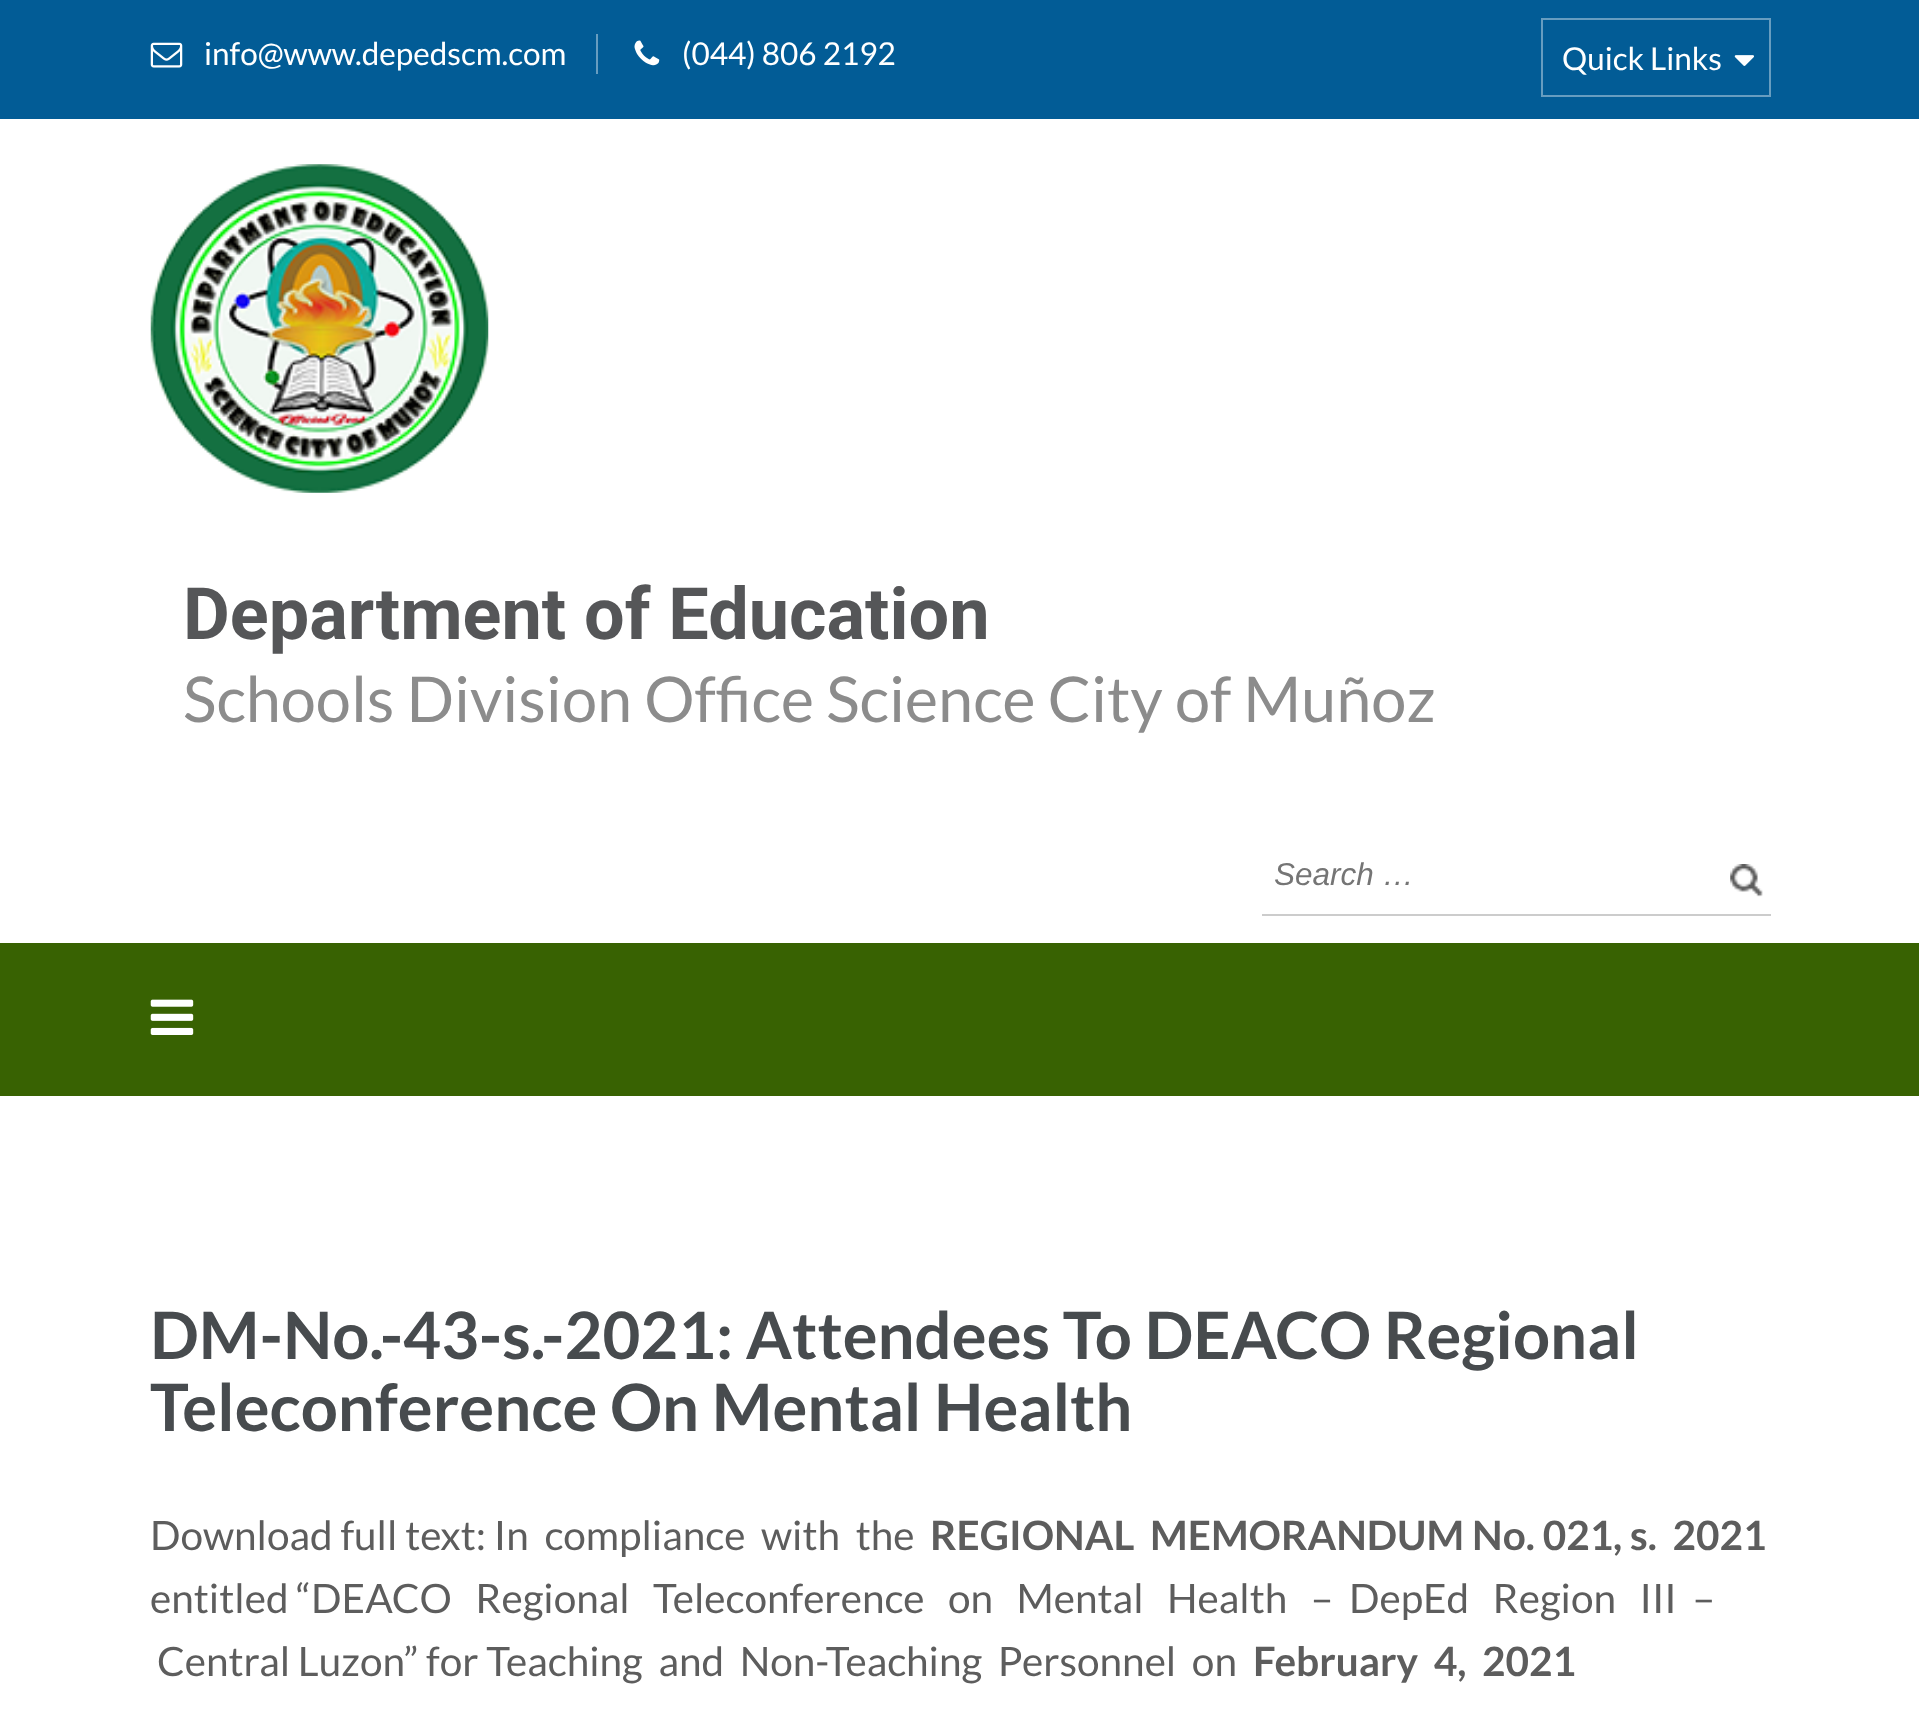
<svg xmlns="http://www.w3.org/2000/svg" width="1919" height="1725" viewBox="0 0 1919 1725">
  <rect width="100%" height="100%" fill="rgb(255,255,255)"/>
  <rect x="0" y="0" width="1919" height="119" fill="rgb(2,92,150)"/>
  <image x="150" y="42" width="33" height="26" href="pic1.png"/>
  <text x="204" y="65" font-family="Lato" font-size="31.5" fill="rgb(255,255,255)">info@www.depedscm.com</text>
  <rect x="596" y="34" width="2" height="40" fill="rgb(103,157,192)"/>
  <image x="634" y="40" width="26" height="26" href="pic2.png"/>
  <text x="682" y="65" font-family="Lato" font-size="31.5" fill="rgb(255,255,255)">(044) 806 2192</text>
  <rect x="1542" y="19" width="228" height="77" fill="none" stroke="rgb(103,157,192)" stroke-width="2"/>
  <text x="1562" y="70" font-family="Lato" font-size="31.5" fill="rgb(255,255,255)">Quick Links</text>
  <image x="1734" y="55" width="20" height="11" href="pic3.png"/>
  <image x="150" y="164" width="339" height="329" href="pic4.png"/>
  <text x="183" y="639" font-family="Roboto" font-size="72" font-weight="bold" fill="rgb(85,86,88)">Department of Education</text>
  <text x="183" y="722" font-family="Lato" font-size="63" fill="rgb(140,140,140)">Schools Division Office Science City of Muñoz</text>
  <rect x="1262" y="914" width="509" height="2" fill="rgb(204,204,204)"/>
  <text x="1274" y="885" font-family="Liberation Sans" font-size="31.5" font-style="italic" fill="rgb(117,117,117)">Search …</text>
  <image x="1730" y="864" width="33" height="33" href="pic5.png"/>
  <rect x="0" y="943" width="1919" height="153" fill="rgb(56,98,2)"/>
  <image x="150" y="999" width="44" height="36" href="pic6.png"/>
  <g font-family="Lato" font-size="65.25" font-weight="bold" fill="rgb(71,75,78)">
    <text>
      <tspan x="150" y="1359">DM-No.-43-s.-2021: Attendees To DEACO Regional</tspan>
      <tspan x="150" y="1431">Teleconference On Mental Health</tspan>
    </text>
  </g>
  <text x="150" y="1550" font-family="Lato" font-size="40.5" fill="rgb(93,93,93)" xml:space="preserve">Download full text: In  compliance  with  the</text>
  <text x="930" y="1550" font-family="Lato" font-size="40.5" font-weight="bold" fill="rgb(93,93,93)" xml:space="preserve">REGIONAL  MEMORANDUM No. 021, s.  2021</text>
  <g font-family="Lato" font-size="40.5" fill="rgb(93,93,93)">
    <text x="150" y="1613" xml:space="preserve">entitled “DEACO   Regional   Teleconference   on   Mental   Health   –  DepEd   Region   III  –</text>
    <text x="157" y="1676" xml:space="preserve">Central Luzon” for Teaching  and  Non-Teaching  Personnel  on</text>
  </g>
  <text x="1253" y="1676" font-family="Lato" font-size="40.5" font-weight="bold" fill="rgb(93,93,93)" xml:space="preserve">February  4,  2021</text>
</svg>
